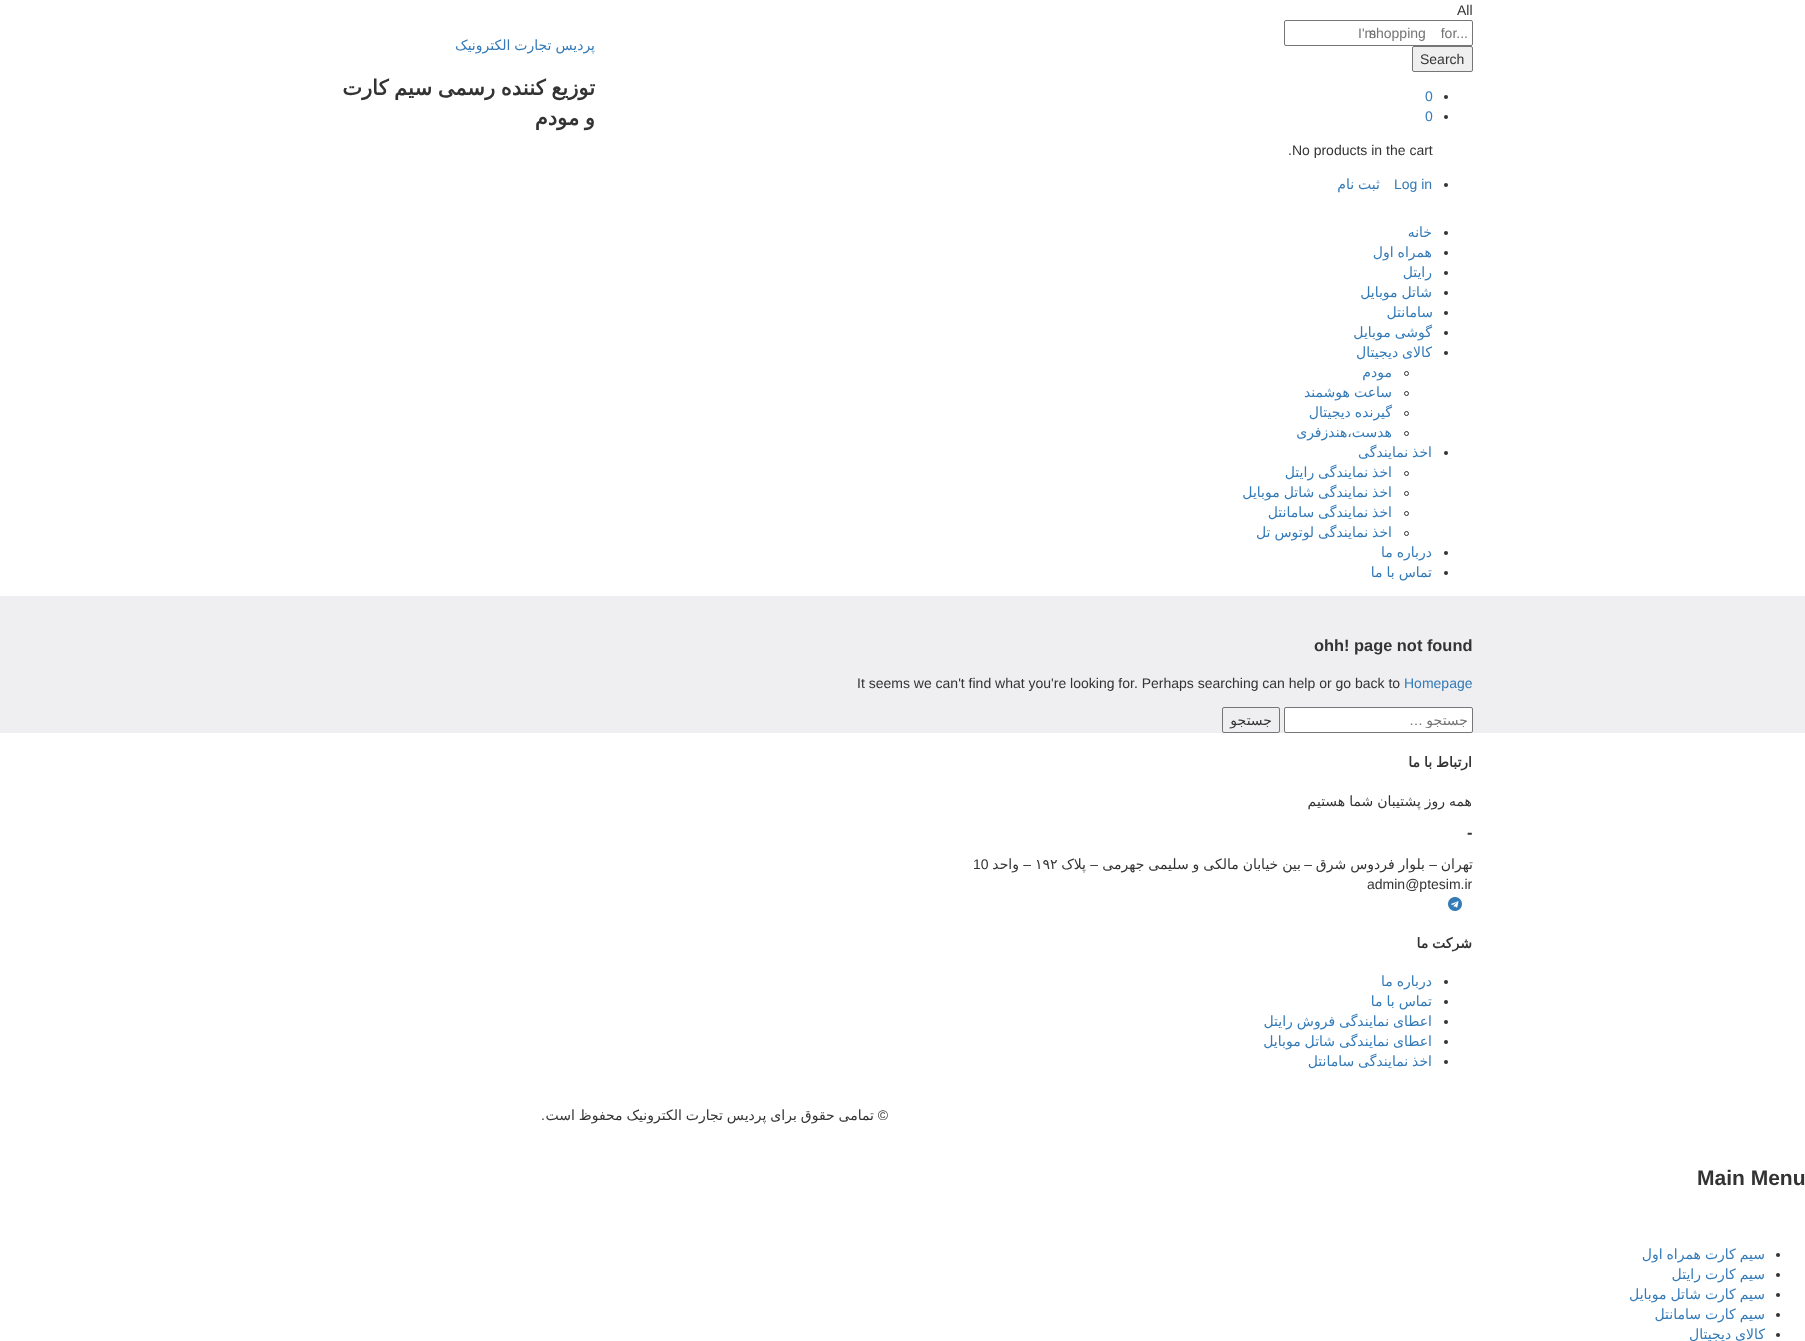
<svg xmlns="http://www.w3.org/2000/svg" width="1805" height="1341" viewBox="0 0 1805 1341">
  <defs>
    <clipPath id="clip1"><rect x="1292" y="712" width="177" height="16"/></clipPath>
  </defs>
  <rect width="100%" height="100%" fill="rgb(255,255,255)"/>
  <text x="1457" y="15" font-family="Liberation Sans" font-size="14" fill="rgb(51,51,51)">All</text>
  <rect x="1284.5" y="20.5" width="188" height="25" rx="1.5" fill="none" stroke="rgb(118,118,118)"/>
  <g font-family="Liberation Sans" font-size="14" fill="rgb(117,117,117)">
    <text x="1358" y="38">I'm</text>
    <text x="1369" y="38" word-spacing="11">shopping for...</text>
  </g>
  <rect x="1412.5" y="46.5" width="60" height="25" rx="1.5" fill="rgb(239,239,239)" stroke="rgb(118,118,118)"/>
  <text x="1420" y="64" font-family="Liberation Sans" font-size="14" fill="rgb(51,51,51)">Search</text>
  <circle cx="1446" cy="97" r="2" fill="rgb(51,51,51)"/>
  <text x="1425" y="101" font-family="Liberation Sans" font-size="14" fill="rgb(51,122,183)">0</text>
  <circle cx="1446" cy="117" r="2" fill="rgb(51,51,51)"/>
  <text x="1425" y="121" font-family="Liberation Sans" font-size="14" fill="rgb(51,122,183)">0</text>
  <text x="1288" y="155" font-family="Liberation Sans" font-size="14" fill="rgb(51,51,51)">.No products in the cart</text>
  <circle cx="1446" cy="185" r="2" fill="rgb(51,51,51)"/>
  <text x="1394" y="189" font-family="Liberation Sans" font-size="14" fill="rgb(51,122,183)">Log in</text>
  <g font-family="DejaVu Sans" font-size="14" direction="rtl" fill="rgb(51,122,183)">
    <text x="1380" y="189" word-spacing="-0.5">ثبت نام</text>
    <text x="595" y="50" word-spacing="-0.5">پردیس تجارت الکترونیک</text>
  </g>
  <g font-family="DejaVu Sans" font-size="21" font-weight="bold" direction="rtl" fill="rgb(51,51,51)">
    <text>
      <tspan x="595" y="95" word-spacing="-1">توزیع کننده رسمی سیم کارت</tspan>
      <tspan x="595" y="125" word-spacing="-1">و مودم</tspan>
    </text>
  </g>
  <circle cx="1446" cy="233" r="2" fill="rgb(51,51,51)"/>
  <text x="1432" y="237" font-family="DejaVu Sans" font-size="14" direction="rtl" fill="rgb(51,122,183)">خانه</text>
  <circle cx="1446" cy="253" r="2" fill="rgb(51,51,51)"/>
  <text x="1432" y="257" word-spacing="-0.5" font-family="DejaVu Sans" font-size="14" direction="rtl" fill="rgb(51,122,183)">همراه اول</text>
  <circle cx="1446" cy="273" r="2" fill="rgb(51,51,51)"/>
  <text x="1432" y="277" font-family="DejaVu Sans" font-size="14" direction="rtl" fill="rgb(51,122,183)">رایتل</text>
  <circle cx="1446" cy="293" r="2" fill="rgb(51,51,51)"/>
  <text x="1432" y="297" word-spacing="-0.5" font-family="DejaVu Sans" font-size="14" direction="rtl" fill="rgb(51,122,183)">شاتل موبایل</text>
  <circle cx="1446" cy="313" r="2" fill="rgb(51,51,51)"/>
  <text x="1433" y="317" font-family="DejaVu Sans" font-size="14" direction="rtl" fill="rgb(51,122,183)">سامانتل</text>
  <circle cx="1446" cy="333" r="2" fill="rgb(51,51,51)"/>
  <text x="1432" y="337" word-spacing="-0.5" font-family="DejaVu Sans" font-size="14" direction="rtl" fill="rgb(51,122,183)">گوشی موبایل</text>
  <circle cx="1446" cy="353" r="2" fill="rgb(51,51,51)"/>
  <text x="1432" y="357" word-spacing="-0.5" font-family="DejaVu Sans" font-size="14" direction="rtl" fill="rgb(51,122,183)">کالای دیجیتال</text>
  <circle cx="1406.5" cy="373.5" r="2" fill="none" stroke="rgb(51,51,51)"/>
  <text x="1392" y="377" font-family="DejaVu Sans" font-size="14" direction="rtl" fill="rgb(51,122,183)">مودم</text>
  <circle cx="1406.5" cy="393.5" r="2" fill="none" stroke="rgb(51,51,51)"/>
  <text x="1392" y="397" word-spacing="-0.5" font-family="DejaVu Sans" font-size="14" direction="rtl" fill="rgb(51,122,183)">ساعت هوشمند</text>
  <circle cx="1406.5" cy="413.5" r="2" fill="none" stroke="rgb(51,51,51)"/>
  <text x="1392" y="417" word-spacing="-0.5" font-family="DejaVu Sans" font-size="14" direction="rtl" fill="rgb(51,122,183)">گیرنده دیجیتال</text>
  <circle cx="1406.5" cy="433.5" r="2" fill="none" stroke="rgb(51,51,51)"/>
  <text x="1392" y="437" font-family="DejaVu Sans" font-size="14" direction="rtl" fill="rgb(51,122,183)">هدست،هندزفری</text>
  <circle cx="1446" cy="453" r="2" fill="rgb(51,51,51)"/>
  <text x="1432" y="457" word-spacing="-0.5" font-family="DejaVu Sans" font-size="14" direction="rtl" fill="rgb(51,122,183)">اخذ نمایندگی</text>
  <circle cx="1406.5" cy="473.5" r="2" fill="none" stroke="rgb(51,51,51)"/>
  <text x="1392" y="477" word-spacing="-0.5" font-family="DejaVu Sans" font-size="14" direction="rtl" fill="rgb(51,122,183)">اخذ نمایندگی رایتل</text>
  <circle cx="1406.5" cy="493.5" r="2" fill="none" stroke="rgb(51,51,51)"/>
  <text x="1392" y="497" word-spacing="-0.5" font-family="DejaVu Sans" font-size="14" direction="rtl" fill="rgb(51,122,183)">اخذ نمایندگی شاتل موبایل</text>
  <circle cx="1406.5" cy="513.5" r="2" fill="none" stroke="rgb(51,51,51)"/>
  <text x="1392" y="517" word-spacing="-0.5" font-family="DejaVu Sans" font-size="14" direction="rtl" fill="rgb(51,122,183)">اخذ نمایندگی سامانتل</text>
  <circle cx="1406.5" cy="533.5" r="2" fill="none" stroke="rgb(51,51,51)"/>
  <text x="1392" y="537" word-spacing="-0.5" font-family="DejaVu Sans" font-size="14" direction="rtl" fill="rgb(51,122,183)">اخذ نمایندگی لوتوس تل</text>
  <circle cx="1446" cy="553" r="2" fill="rgb(51,51,51)"/>
  <text x="1432" y="557" word-spacing="-0.5" font-family="DejaVu Sans" font-size="14" direction="rtl" fill="rgb(51,122,183)">درباره ما</text>
  <circle cx="1446" cy="573" r="2" fill="rgb(51,51,51)"/>
  <text x="1432" y="577" word-spacing="-0.5" font-family="DejaVu Sans" font-size="14" direction="rtl" fill="rgb(51,122,183)">تماس با ما</text>
  <rect x="0" y="596" width="1805" height="137" fill="rgb(239,238,240)"/>
  <text x="1314" y="651" font-family="Liberation Sans" font-size="16.4" font-weight="bold" fill="rgb(51,51,51)">ohh! page not found</text>
  <text x="1404" y="688" font-family="Liberation Sans" font-size="14" fill="rgb(51,122,183)">Homepage</text>
  <text x="857" y="688" font-family="Liberation Sans" font-size="14" fill="rgb(51,51,51)">It seems we can't find what you're looking for. Perhaps searching can help or go back to</text>
  <rect x="1284.5" y="707.5" width="188" height="25" rx="1.5" fill="rgb(255,255,255)" stroke="rgb(118,118,118)"/>
  <g clip-path="url(#clip1)">
    <text x="1468" y="725" font-family="DejaVu Sans" font-size="14" direction="rtl" fill="rgb(117,117,117)">جستجو</text>
  </g>
  <text x="1423" y="725" font-family="Liberation Sans" font-size="14" direction="rtl" fill="rgb(117,117,117)">…</text>
  <rect x="1222.5" y="707.5" width="57" height="25" rx="1.5" fill="none" stroke="rgb(118,118,118)"/>
  <text x="1272" y="725" font-family="DejaVu Sans" font-size="14" direction="rtl" fill="rgb(51,51,51)">جستجو</text>
  <text x="1472" y="767" word-spacing="-0.5" font-family="DejaVu Sans" font-size="14" font-weight="bold" direction="rtl" fill="rgb(51,51,51)">ارتباط با ما</text>
  <text x="1472" y="806" word-spacing="-0.5" font-family="DejaVu Sans" font-size="14" direction="rtl" fill="rgb(51,51,51)">همه روز پشتیبان شما هستیم</text>
  <text x="1467" y="838" font-family="Liberation Sans" font-size="16.4" font-weight="bold" fill="rgb(51,51,51)">-</text>
  <text x="1473" y="869" font-family="DejaVu Sans" font-size="14" direction="rtl" fill="rgb(51,51,51)">تهران</text>
  <text x="1437" y="869" font-family="Liberation Sans" font-size="14" direction="rtl" fill="rgb(51,51,51)">–</text>
  <text x="1425" y="869" word-spacing="-0.5" font-family="DejaVu Sans" font-size="14" direction="rtl" fill="rgb(51,51,51)">بلوار فردوس شرق</text>
  <text x="1312" y="869" font-family="Liberation Sans" font-size="14" direction="rtl" fill="rgb(51,51,51)">–</text>
  <text x="1301" y="869" word-spacing="-0.5" font-family="DejaVu Sans" font-size="14" direction="rtl" fill="rgb(51,51,51)">بین خیابان مالکی و سلیمی جهرمی</text>
  <text x="1098" y="869" font-family="Liberation Sans" font-size="14" direction="rtl" fill="rgb(51,51,51)">–</text>
  <text x="1086" y="869" font-family="DejaVu Sans" font-size="14" direction="rtl" fill="rgb(51,51,51)">پلاک</text>
  <text x="1035" y="869" font-family="DejaVu Sans" font-size="14" fill="rgb(51,51,51)">۱۹۲</text>
  <text x="1031" y="869" font-family="Liberation Sans" font-size="14" direction="rtl" fill="rgb(51,51,51)">–</text>
  <text x="1019" y="869" font-family="DejaVu Sans" font-size="14" direction="rtl" fill="rgb(51,51,51)">واحد</text>
  <g font-family="Liberation Sans" font-size="14" fill="rgb(51,51,51)">
    <text x="973" y="869">10</text>
    <text x="1367" y="889">admin@ptesim.ir</text>
  </g>
  <image x="1448" y="897" width="14" height="14" href="pic1.png"/>
  <text x="1472" y="948" word-spacing="-0.5" font-family="DejaVu Sans" font-size="14" font-weight="bold" direction="rtl" fill="rgb(51,51,51)">شرکت ما</text>
  <circle cx="1446" cy="982" r="2" fill="rgb(51,51,51)"/>
  <text x="1432" y="986" word-spacing="-0.5" font-family="DejaVu Sans" font-size="14" direction="rtl" fill="rgb(51,122,183)">درباره ما</text>
  <circle cx="1446" cy="1002" r="2" fill="rgb(51,51,51)"/>
  <text x="1432" y="1006" word-spacing="-0.5" font-family="DejaVu Sans" font-size="14" direction="rtl" fill="rgb(51,122,183)">تماس با ما</text>
  <circle cx="1446" cy="1022" r="2" fill="rgb(51,51,51)"/>
  <text x="1432" y="1026" word-spacing="-0.5" font-family="DejaVu Sans" font-size="14" direction="rtl" fill="rgb(51,122,183)">اعطای نمایندگی فروش رایتل</text>
  <circle cx="1446" cy="1042" r="2" fill="rgb(51,51,51)"/>
  <text x="1432" y="1046" word-spacing="-0.5" font-family="DejaVu Sans" font-size="14" direction="rtl" fill="rgb(51,122,183)">اعطای نمایندگی شاتل موبایل</text>
  <circle cx="1446" cy="1062" r="2" fill="rgb(51,51,51)"/>
  <text x="1432" y="1066" word-spacing="-0.5" font-family="DejaVu Sans" font-size="14" direction="rtl" fill="rgb(51,122,183)">اخذ نمایندگی سامانتل</text>
  <text x="888" y="1120" font-family="Liberation Sans" font-size="14" direction="rtl" fill="rgb(51,51,51)">©</text>
  <text x="874" y="1120" word-spacing="-0.5" font-family="DejaVu Sans" font-size="14" direction="rtl" fill="rgb(51,51,51)">تمامی حقوق برای پردیس تجارت الکترونیک محفوظ است</text>
  <text x="545" y="1120" font-family="Liberation Sans" font-size="14" direction="rtl" fill="rgb(51,51,51)">.</text>
  <text x="1697" y="1185" font-family="Liberation Sans" font-size="21" font-weight="bold" fill="rgb(51,51,51)">Main Menu</text>
  <circle cx="1778" cy="1255" r="2" fill="rgb(51,51,51)"/>
  <text x="1765" y="1259" word-spacing="-0.5" font-family="DejaVu Sans" font-size="14" direction="rtl" fill="rgb(51,122,183)">سیم کارت همراه اول</text>
  <circle cx="1778" cy="1275" r="2" fill="rgb(51,51,51)"/>
  <text x="1765" y="1279" word-spacing="-0.5" font-family="DejaVu Sans" font-size="14" direction="rtl" fill="rgb(51,122,183)">سیم کارت رایتل</text>
  <circle cx="1778" cy="1295" r="2" fill="rgb(51,51,51)"/>
  <text x="1765" y="1299" word-spacing="-0.5" font-family="DejaVu Sans" font-size="14" direction="rtl" fill="rgb(51,122,183)">سیم کارت شاتل موبایل</text>
  <circle cx="1778" cy="1315" r="2" fill="rgb(51,51,51)"/>
  <text x="1765" y="1319" word-spacing="-0.5" font-family="DejaVu Sans" font-size="14" direction="rtl" fill="rgb(51,122,183)">سیم کارت سامانتل</text>
  <circle cx="1778" cy="1335" r="2" fill="rgb(51,51,51)"/>
  <text x="1765" y="1339" word-spacing="-0.5" font-family="DejaVu Sans" font-size="14" direction="rtl" fill="rgb(51,122,183)">کالای دیجیتال</text>
</svg>
